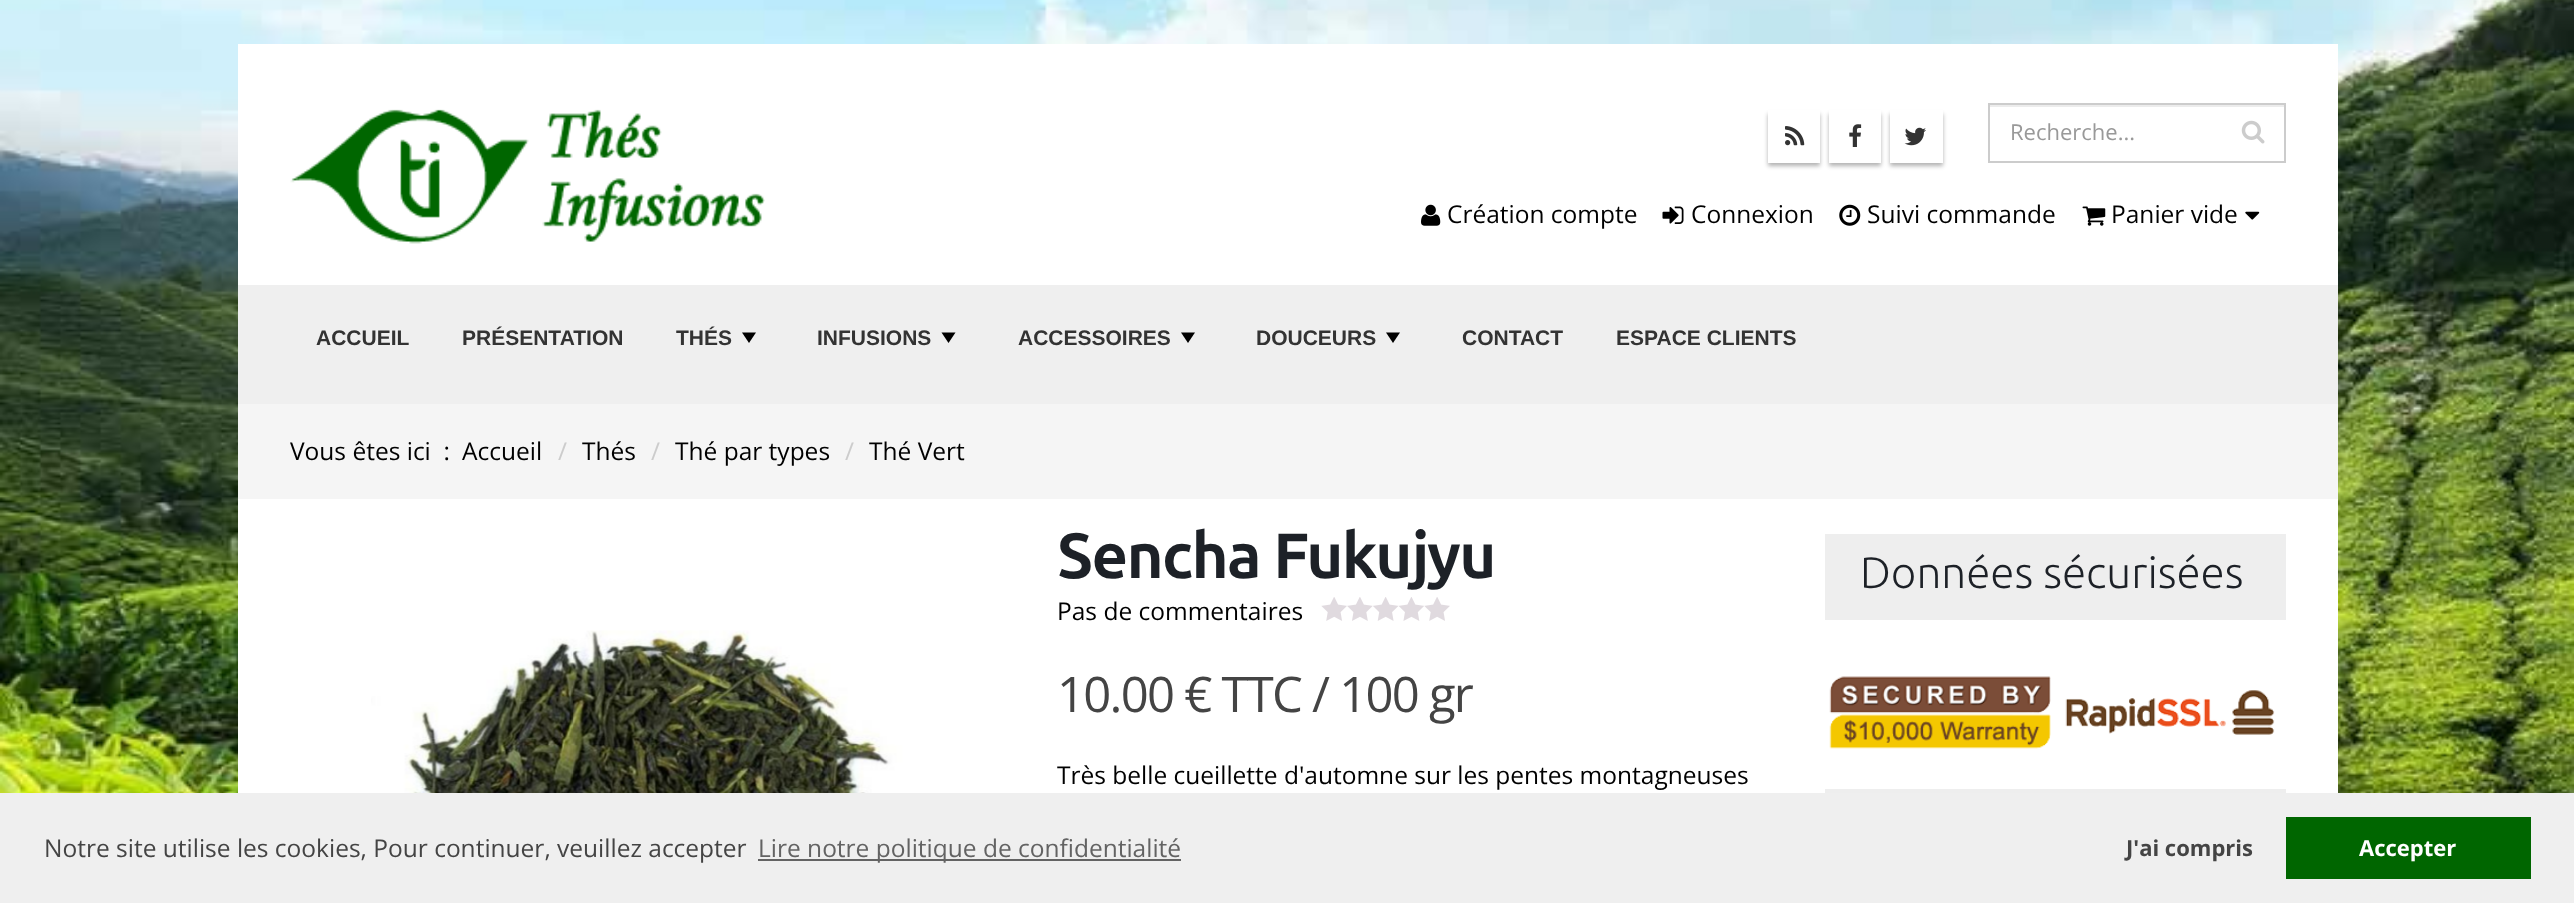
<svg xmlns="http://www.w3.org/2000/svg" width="2574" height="903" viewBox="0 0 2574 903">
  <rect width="100%" height="100%" fill="rgb(255,255,255)"/>
  <image x="0" y="0" width="2574" height="793" href="pic1.png"/>
  <rect x="238" y="44" width="2100" height="241" fill="rgb(255,255,255)"/>
  <image x="290" y="109" width="475" height="135" href="pic2.png"/>
  <rect x="1768" y="114" width="52" height="52" fill="rgba(0,0,0,0.3)" filter="blur(2px)"/>
  <rect x="1768" y="110" width="52" height="53" fill="rgb(255,255,255)"/>
  <image x="1785" y="126" width="20" height="20" href="pic3.png"/>
  <rect x="1829" y="114" width="52" height="52" fill="rgba(0,0,0,0.3)" filter="blur(2px)"/>
  <rect x="1829" y="110" width="52" height="53" fill="rgb(255,255,255)"/>
  <image x="1849" y="124" width="13" height="23" href="pic4.png"/>
  <rect x="1890" y="114" width="53" height="52" fill="rgba(0,0,0,0.3)" filter="blur(2px)"/>
  <rect x="1890" y="110" width="53" height="53" fill="rgb(255,255,255)"/>
  <image x="1904" y="127" width="22" height="19" href="pic5.png"/>
  <rect x="1990" y="105" width="294" height="2" fill="rgb(236,236,236)"/>
  <rect x="1989" y="104" width="296" height="58" fill="none" stroke="rgb(204,204,204)" stroke-width="2"/>
  <text x="2010" y="140" font-family="Open Sans" font-size="22" fill="rgb(153,153,153)">Recherche...</text>
  <image x="2241" y="120" width="24" height="24" href="pic6.png"/>
  <image x="1421" y="204" width="20" height="22" href="pic7.png"/>
  <text x="1447" y="223" font-family="Open Sans" font-size="24.5" fill="rgb(0,0,0)">Création compte</text>
  <image x="1662" y="206" width="22" height="18" href="pic8.png"/>
  <text x="1691" y="223" font-family="Open Sans" font-size="24.5" fill="rgb(0,0,0)">Connexion</text>
  <image x="1839" y="204" width="22" height="22" href="pic9.png"/>
  <text x="1867" y="223" font-family="Open Sans" font-size="24.5" fill="rgb(0,0,0)">Suivi commande</text>
  <image x="2082" y="206" width="24" height="20" href="pic10.png"/>
  <text x="2111" y="223" font-family="Open Sans" font-size="24.5" fill="rgb(0,0,0)">Panier vide</text>
  <image x="2245" y="211" width="15" height="9" href="pic11.png"/>
  <rect x="238" y="285" width="2100" height="119" fill="rgb(239,239,239)"/>
  <g font-family="Liberation Sans" font-size="21" font-weight="bold" fill="rgb(51,51,51)">
    <text x="316" y="345">ACCUEIL</text>
    <text x="462" y="345">PRÉSENTATION</text>
    <text x="676" y="345">THÉS</text>
  </g>
  <path d="M742 332.5H756L749 343Z" fill="rgb(0,0,0)"/>
  <text x="817" y="345" font-family="Liberation Sans" font-size="21" font-weight="bold" fill="rgb(51,51,51)">INFUSIONS</text>
  <path d="M941.5 332.5H955.5L948.5 343Z" fill="rgb(0,0,0)"/>
  <text x="1018" y="345" font-family="Liberation Sans" font-size="21" font-weight="bold" fill="rgb(51,51,51)">ACCESSOIRES</text>
  <path d="M1181 332.5H1195L1188 343Z" fill="rgb(0,0,0)"/>
  <text x="1256" y="345" font-family="Liberation Sans" font-size="21" font-weight="bold" fill="rgb(51,51,51)">DOUCEURS</text>
  <path d="M1386 332.5H1400L1393 343Z" fill="rgb(0,0,0)"/>
  <g font-family="Liberation Sans" font-size="21" font-weight="bold" fill="rgb(51,51,51)">
    <text x="1462" y="345">CONTACT</text>
    <text x="1616" y="345">ESPACE CLIENTS</text>
  </g>
  <rect x="238" y="404" width="2100" height="95" fill="rgb(245,245,245)"/>
  <g font-family="Open Sans" font-size="24.5" fill="rgb(0,0,0)">
    <text x="290" y="460" xml:space="preserve">Vous êtes ici  :</text>
    <text x="462" y="460">Accueil</text>
  </g>
  <text x="558" y="460" font-family="Open Sans" font-size="24.5" fill="rgb(204,204,204)">/</text>
  <text x="582" y="460" font-family="Open Sans" font-size="24.5" fill="rgb(0,0,0)">Thés</text>
  <text x="651" y="460" font-family="Open Sans" font-size="24.5" fill="rgb(204,204,204)">/</text>
  <text x="675" y="460" font-family="Open Sans" font-size="24.5" fill="rgb(0,0,0)">Thé par types</text>
  <text x="845" y="460" font-family="Open Sans" font-size="24.5" fill="rgb(204,204,204)">/</text>
  <text x="869" y="460" font-family="Open Sans" font-size="24.5" fill="rgb(0,0,0)">Thé Vert</text>
  <rect x="238" y="499" width="2100" height="294" fill="rgb(255,255,255)"/>
  <image x="371" y="630" width="589" height="163" href="pic12.png"/>
  <text x="1057" y="578" font-family="Ubuntu" font-size="63.75" font-weight="bold" letter-spacing="-1.75" fill="rgb(29,33,39)">Sencha Fukujyu</text>
  <text x="1057" y="620" font-family="Open Sans" font-size="24.5" fill="rgb(0,0,0)">Pas de commentaires</text>
  <image x="1321" y="597" width="129" height="24" href="pic13.png"/>
  <text x="1057" y="712" font-family="Open Sans" font-size="49" letter-spacing="-1.75" fill="rgb(68,68,68)">10.00 € TTC / 100 gr</text>
  <text x="1057" y="784" font-family="Open Sans" font-size="24.5" fill="rgb(0,0,0)">Très belle cueillette d'automne sur les pentes montagneuses</text>
  <rect x="1825" y="534" width="461" height="86" fill="rgb(238,238,238)"/>
  <text x="1860" y="588" font-family="Ubuntu" font-size="44" font-weight="300" fill="rgb(29,33,39)">Données sécurisées</text>
  <image x="1829" y="676" width="446" height="73" href="pic14.png"/>
  <rect x="1825" y="789" width="461" height="4" fill="rgb(238,238,238)"/>
  <rect x="0" y="793" width="2574" height="110" fill="rgb(239,239,239)"/>
  <text x="44" y="857" font-family="Open Sans" font-size="24.5" fill="rgb(68,68,68)">Notre site utilise les cookies, Pour continuer, veuillez accepter</text>
  <rect x="758" y="859" width="423" height="2" fill="rgb(99,99,99)"/>
  <text x="758" y="857" font-family="Open Sans" font-size="24.5" fill="rgb(99,99,99)">Lire notre politique de confidentialité</text>
  <text x="2126" y="856" font-family="Open Sans" font-size="22" font-weight="bold" fill="rgb(68,68,68)">J'ai compris</text>
  <rect x="2286" y="817" width="245" height="62" fill="rgb(0,102,0)"/>
  <text x="2359" y="856" font-family="Open Sans" font-size="22" font-weight="bold" fill="rgb(255,255,255)">Accepter</text>
</svg>
